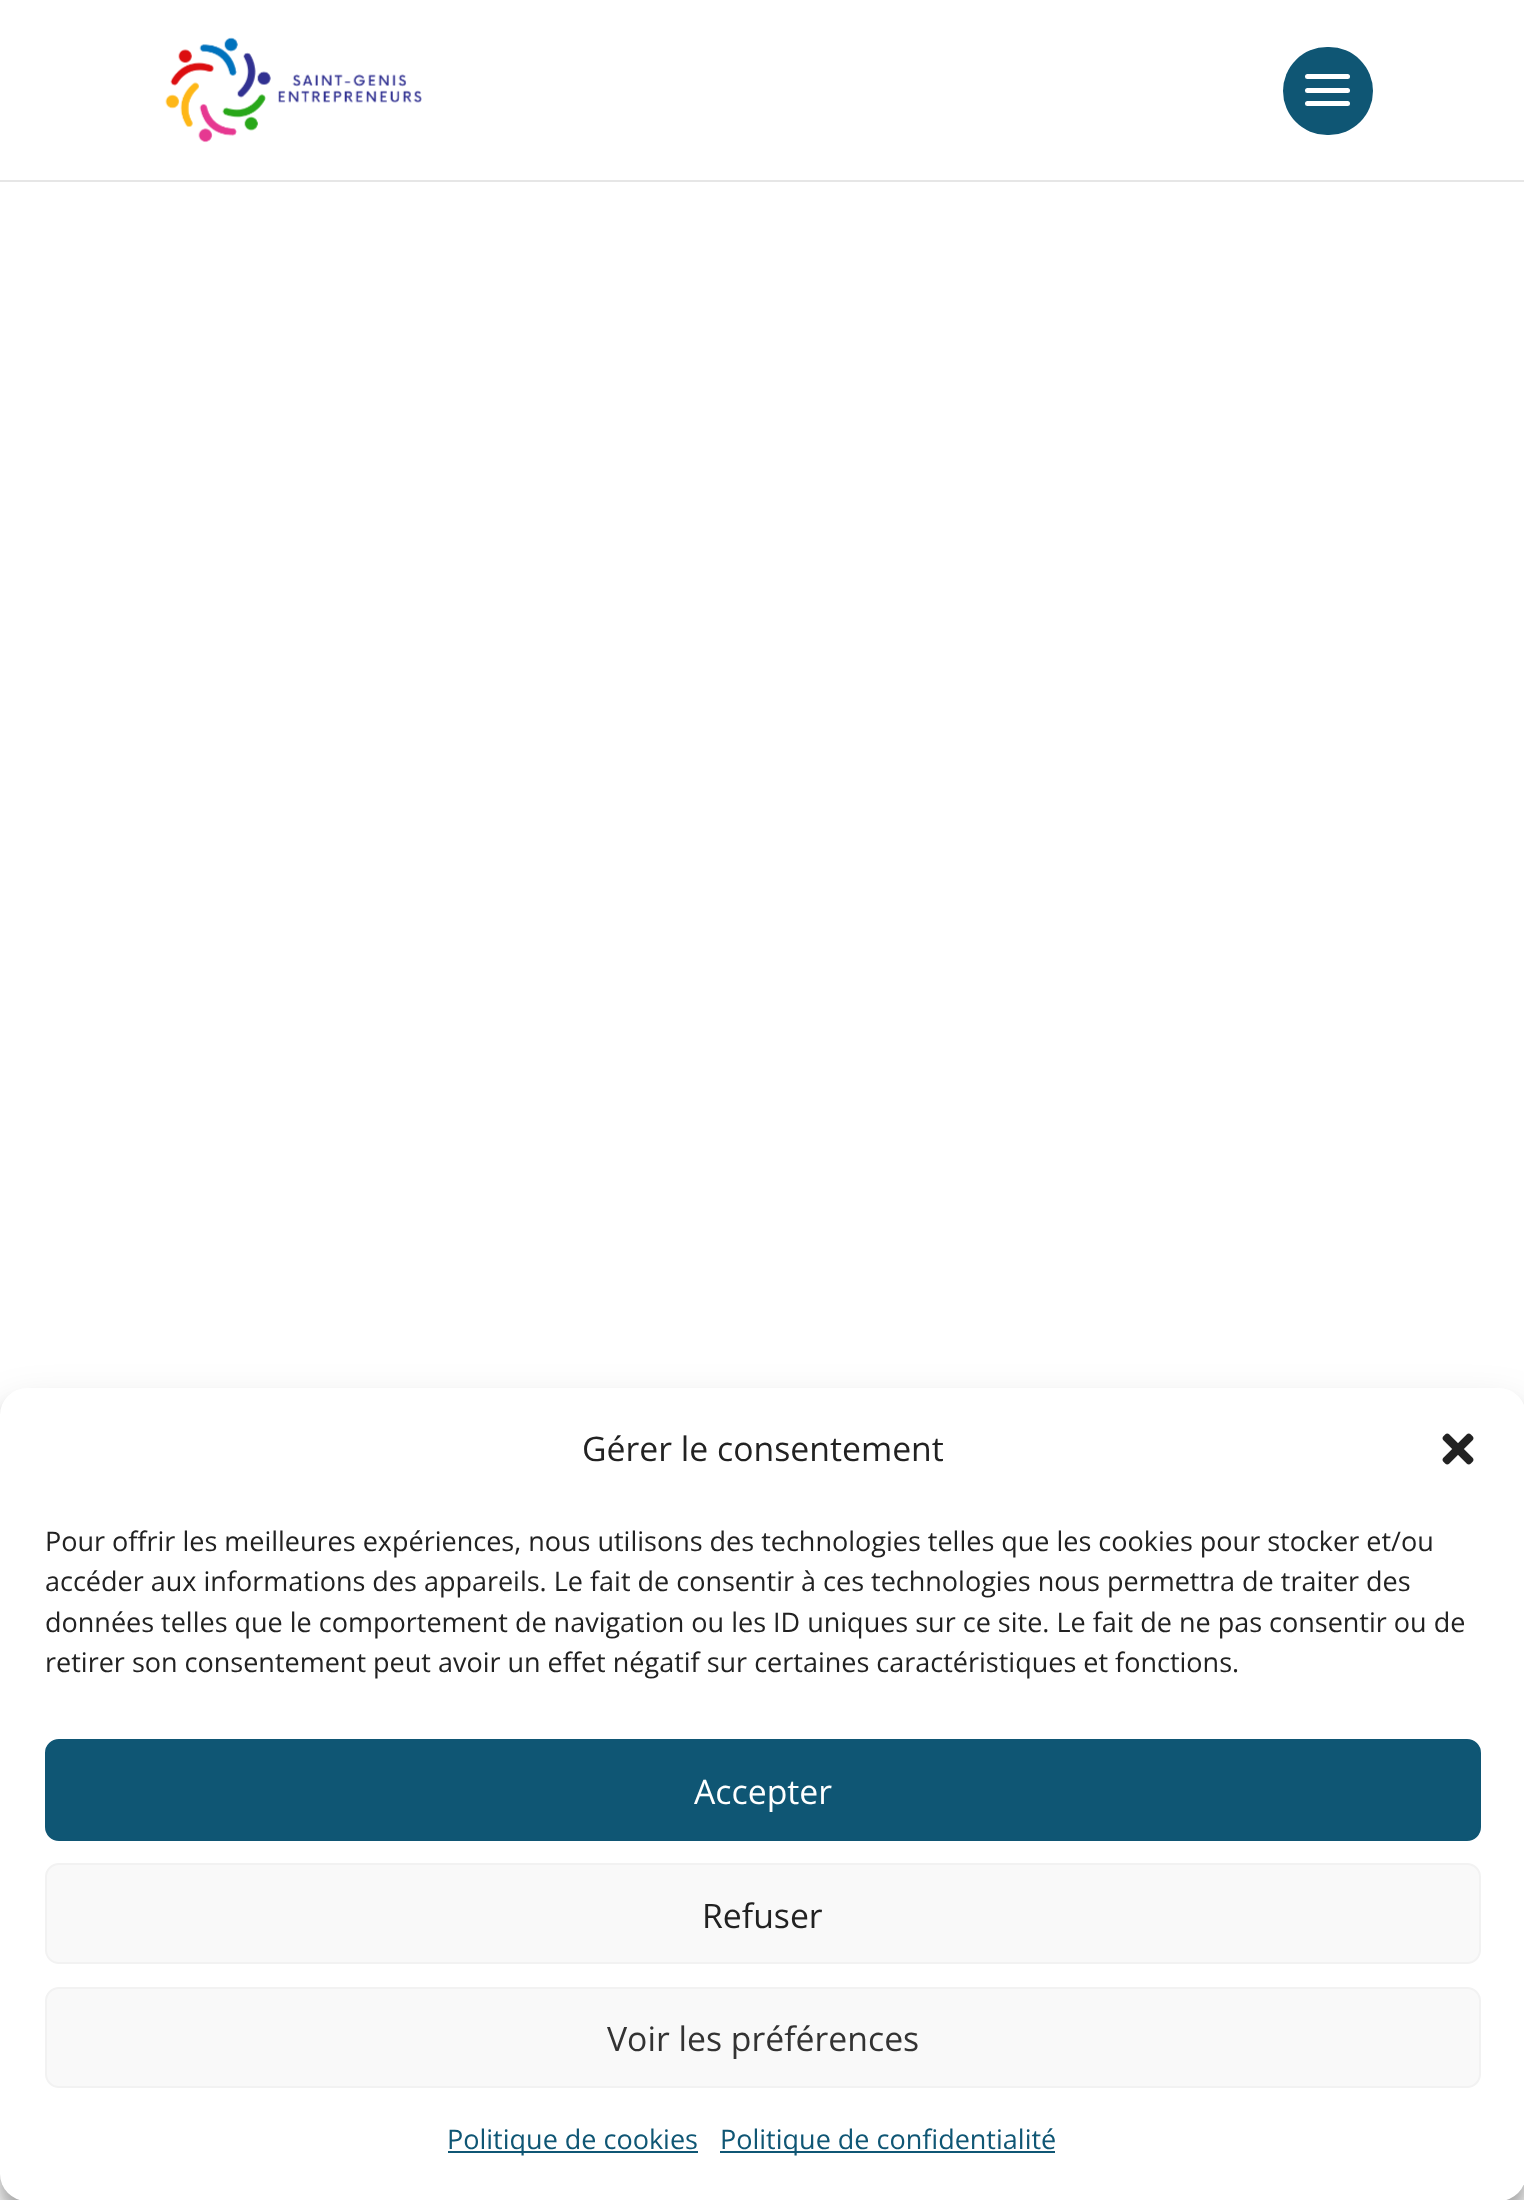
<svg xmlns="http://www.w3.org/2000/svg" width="1524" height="2200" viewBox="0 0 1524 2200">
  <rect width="100%" height="100%" fill="rgb(255,255,255)"/>
  <path d="M0 180V182H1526V2V180Z" fill="rgb(230,230,230)"/>
  <image x="165" y="37" width="257" height="106" href="pic1.png"/>
  <rect x="1283" y="47" width="90" height="88" rx="44" fill="rgb(15,86,116)"/>
  <rect x="1305" y="74" width="45" height="5" rx="2.5" fill="rgb(255,255,255)"/>
  <rect x="1305" y="88" width="45" height="5" rx="2.5" fill="rgb(255,255,255)"/>
  <rect x="1305" y="101" width="45" height="5" rx="2.5" fill="rgb(255,255,255)"/>
  <rect x="0" y="1402" width="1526" height="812" rx="27" fill="rgba(0,0,0,0.23)" filter="blur(7px)"/>
  <rect x="0" y="1411" width="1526" height="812" rx="27" fill="rgba(0,0,0,0.19)" filter="blur(22.5px)"/>
  <rect x="0" y="1388" width="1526" height="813" rx="27" fill="rgb(255,255,255)"/>
  <text x="582" y="1461" font-family="Open Sans" font-size="33.75" fill="rgb(34,34,34)">Gérer le consentement</text>
  <image x="1442" y="1433" width="32" height="32" href="pic2.png"/>
  <g font-family="Open Sans" font-size="27" fill="rgb(34,34,34)">
    <text>
      <tspan x="45" y="1551">Pour offrir les meilleures expériences, nous utilisons des technologies telles que les cookies pour stocker et/ou</tspan>
      <tspan x="45" y="1591">accéder aux informations des appareils. Le fait de consentir à ces technologies nous permettra de traiter des</tspan>
      <tspan x="45" y="1632">données telles que le comportement de navigation ou les ID uniques sur ce site. Le fait de ne pas consentir ou de</tspan>
      <tspan x="45" y="1672">retirer son consentement peut avoir un effet négatif sur certaines caractéristiques et fonctions.</tspan>
    </text>
  </g>
  <rect x="46" y="1740" width="1434" height="100" rx="13" fill="rgb(15,86,116)" stroke="rgb(15,86,116)" stroke-width="2"/>
  <text x="694" y="1804" font-family="Open Sans" font-size="33.75" fill="rgb(255,255,255)">Accepter</text>
  <rect x="46" y="1864" width="1434" height="99" rx="13" fill="rgb(249,249,249)" stroke="rgb(242,242,242)" stroke-width="2"/>
  <text x="702" y="1928" font-family="Open Sans" font-size="33.75" fill="rgb(34,34,34)">Refuser</text>
  <rect x="46" y="1988" width="1434" height="99" rx="13" fill="rgb(249,249,249)" stroke="rgb(242,242,242)" stroke-width="2"/>
  <text x="607" y="2051" font-family="Open Sans" font-size="33.75" fill="rgb(51,51,51)">Voir les préférences</text>
  <rect x="448" y="2151" width="250" height="2" fill="rgb(15,86,116)"/>
  <text x="447" y="2149" font-family="Open Sans" font-size="27" fill="rgb(15,86,116)">Politique de cookies</text>
  <rect x="720" y="2151" width="335" height="2" fill="rgb(15,86,116)"/>
  <text x="720" y="2149" font-family="Open Sans" font-size="27" fill="rgb(15,86,116)">Politique de confidentialité</text>
</svg>
